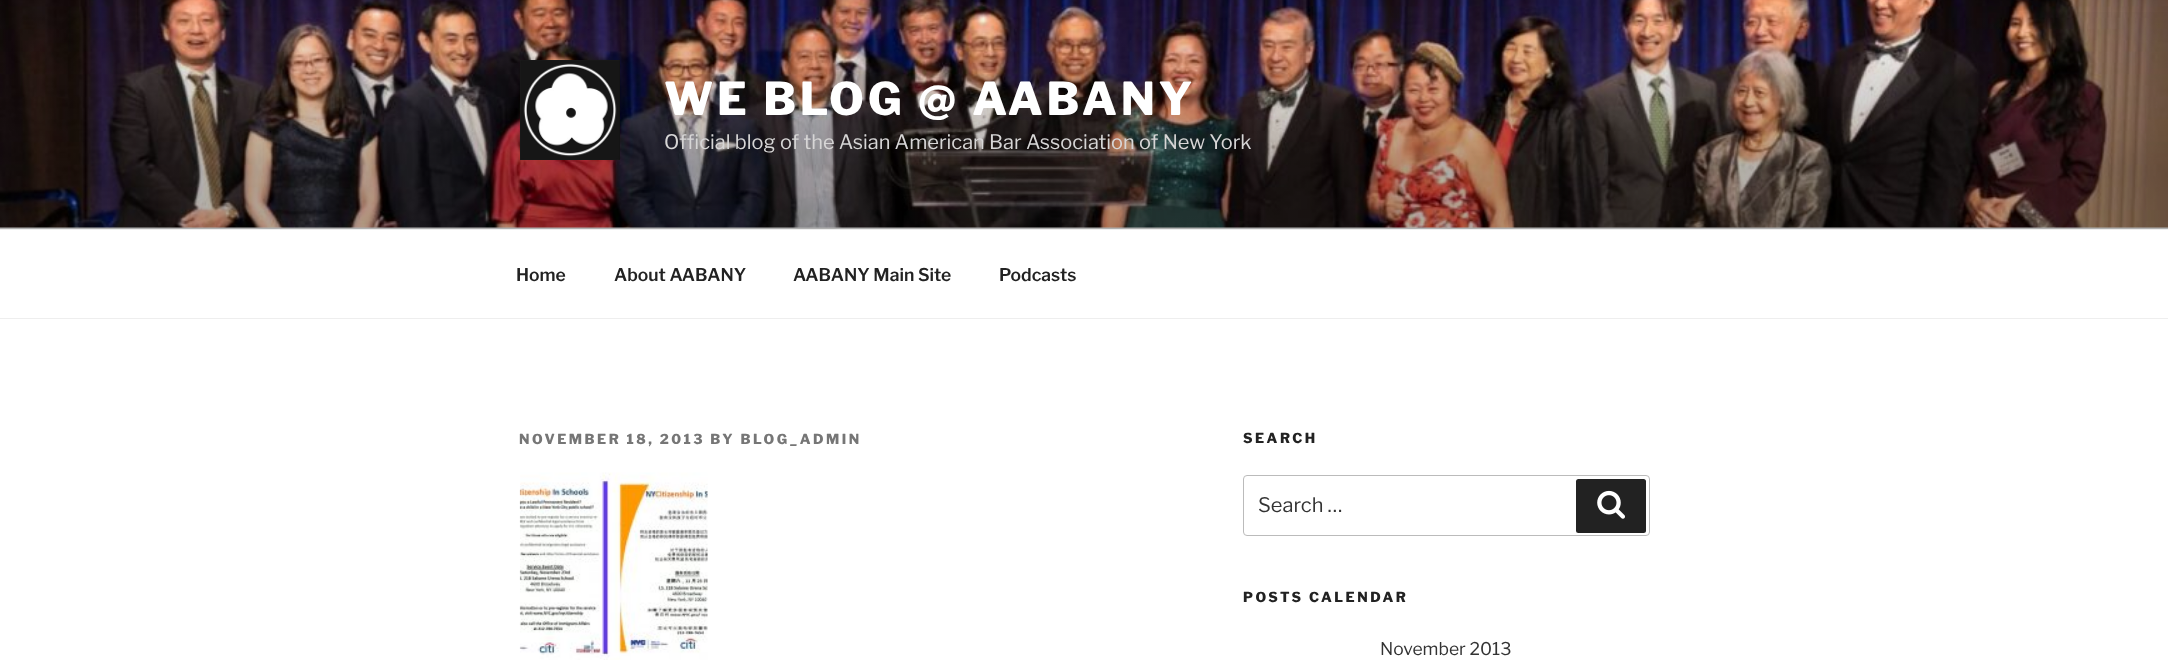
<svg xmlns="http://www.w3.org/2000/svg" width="2168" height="672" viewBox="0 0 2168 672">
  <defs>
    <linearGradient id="g1" gradientUnits="userSpaceOnUse" x1="1084" y1="0" x2="1084" y2="229"><stop offset="0" stop-color="rgb(0,0,0)" stop-opacity="0"/><stop offset="0.75" stop-color="rgb(0,0,0)" stop-opacity="0.3"/><stop offset="1" stop-color="rgb(0,0,0)" stop-opacity="0.3"/></linearGradient>
  </defs>
  <rect width="100%" height="100%" fill="rgb(255,255,255)"/>
  <rect x="0" y="227" width="2168" height="2" fill="rgb(250,250,250)"/>
  <image x="0" y="0" width="2168" height="228" href="pic1.png"/>
  <rect x="0" y="12" width="2168" height="217" fill="url(#g1)"/>
  <image x="520" y="60" width="100" height="100" href="pic2.png"/>
  <text x="664" y="115" font-family="Libre Franklin" font-size="45" font-weight="100" letter-spacing="3.6" fill="rgb(255,255,255)">WE BLOG @ AABANY</text>
  <text x="664" y="149" font-family="'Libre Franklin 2'" font-size="20" font-weight="100" fill="rgb(215,214,214)">Official blog of the Asian American Bar Association of New York</text>
  <rect x="0" y="229" width="2168" height="1" fill="rgb(238,238,238)"/>
  <rect x="0" y="318" width="2168" height="1" fill="rgb(238,238,238)"/>
  <g font-family="'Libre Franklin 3'" font-size="17.5" font-weight="100" fill="rgb(34,34,34)">
    <text x="516" y="281">Home</text>
    <text x="614" y="281">About AABANY</text>
    <text x="793" y="281">AABANY Main Site</text>
    <text x="999" y="281">Podcasts</text>
  </g>
  <text x="519" y="444" font-family="Libre Franklin" font-size="13.75" font-weight="100" letter-spacing="2.5" fill="rgb(118,118,118)">NOVEMBER 18, 2013 BY BLOG_ADMIN</text>
  <image x="519" y="472" width="189" height="188" href="pic3.png"/>
  <text x="1243" y="443" font-family="Libre Franklin" font-size="13.75" font-weight="100" letter-spacing="2.5" fill="rgb(34,34,34)">SEARCH</text>
  <rect x="1243.5" y="475.5" width="406" height="60" rx="3.5" fill="none" stroke="rgb(187,187,187)"/>
  <text x="1258" y="512" font-family="'Libre Franklin 2'" font-size="20" font-weight="100" fill="rgb(51,51,51)">Search …</text>
  <rect x="1576" y="479" width="70" height="54" rx="2.5" fill="rgb(34,34,34)"/>
  <image x="1597" y="490" width="28" height="29" href="pic4.png"/>
  <text x="1243" y="602" font-family="Libre Franklin" font-size="13.75" font-weight="100" letter-spacing="2.5" fill="rgb(34,34,34)">POSTS CALENDAR</text>
  <text x="1380" y="655" font-family="'Libre Franklin 2'" font-size="17.5" font-weight="100" fill="rgb(51,51,51)">November 2013</text>
</svg>
